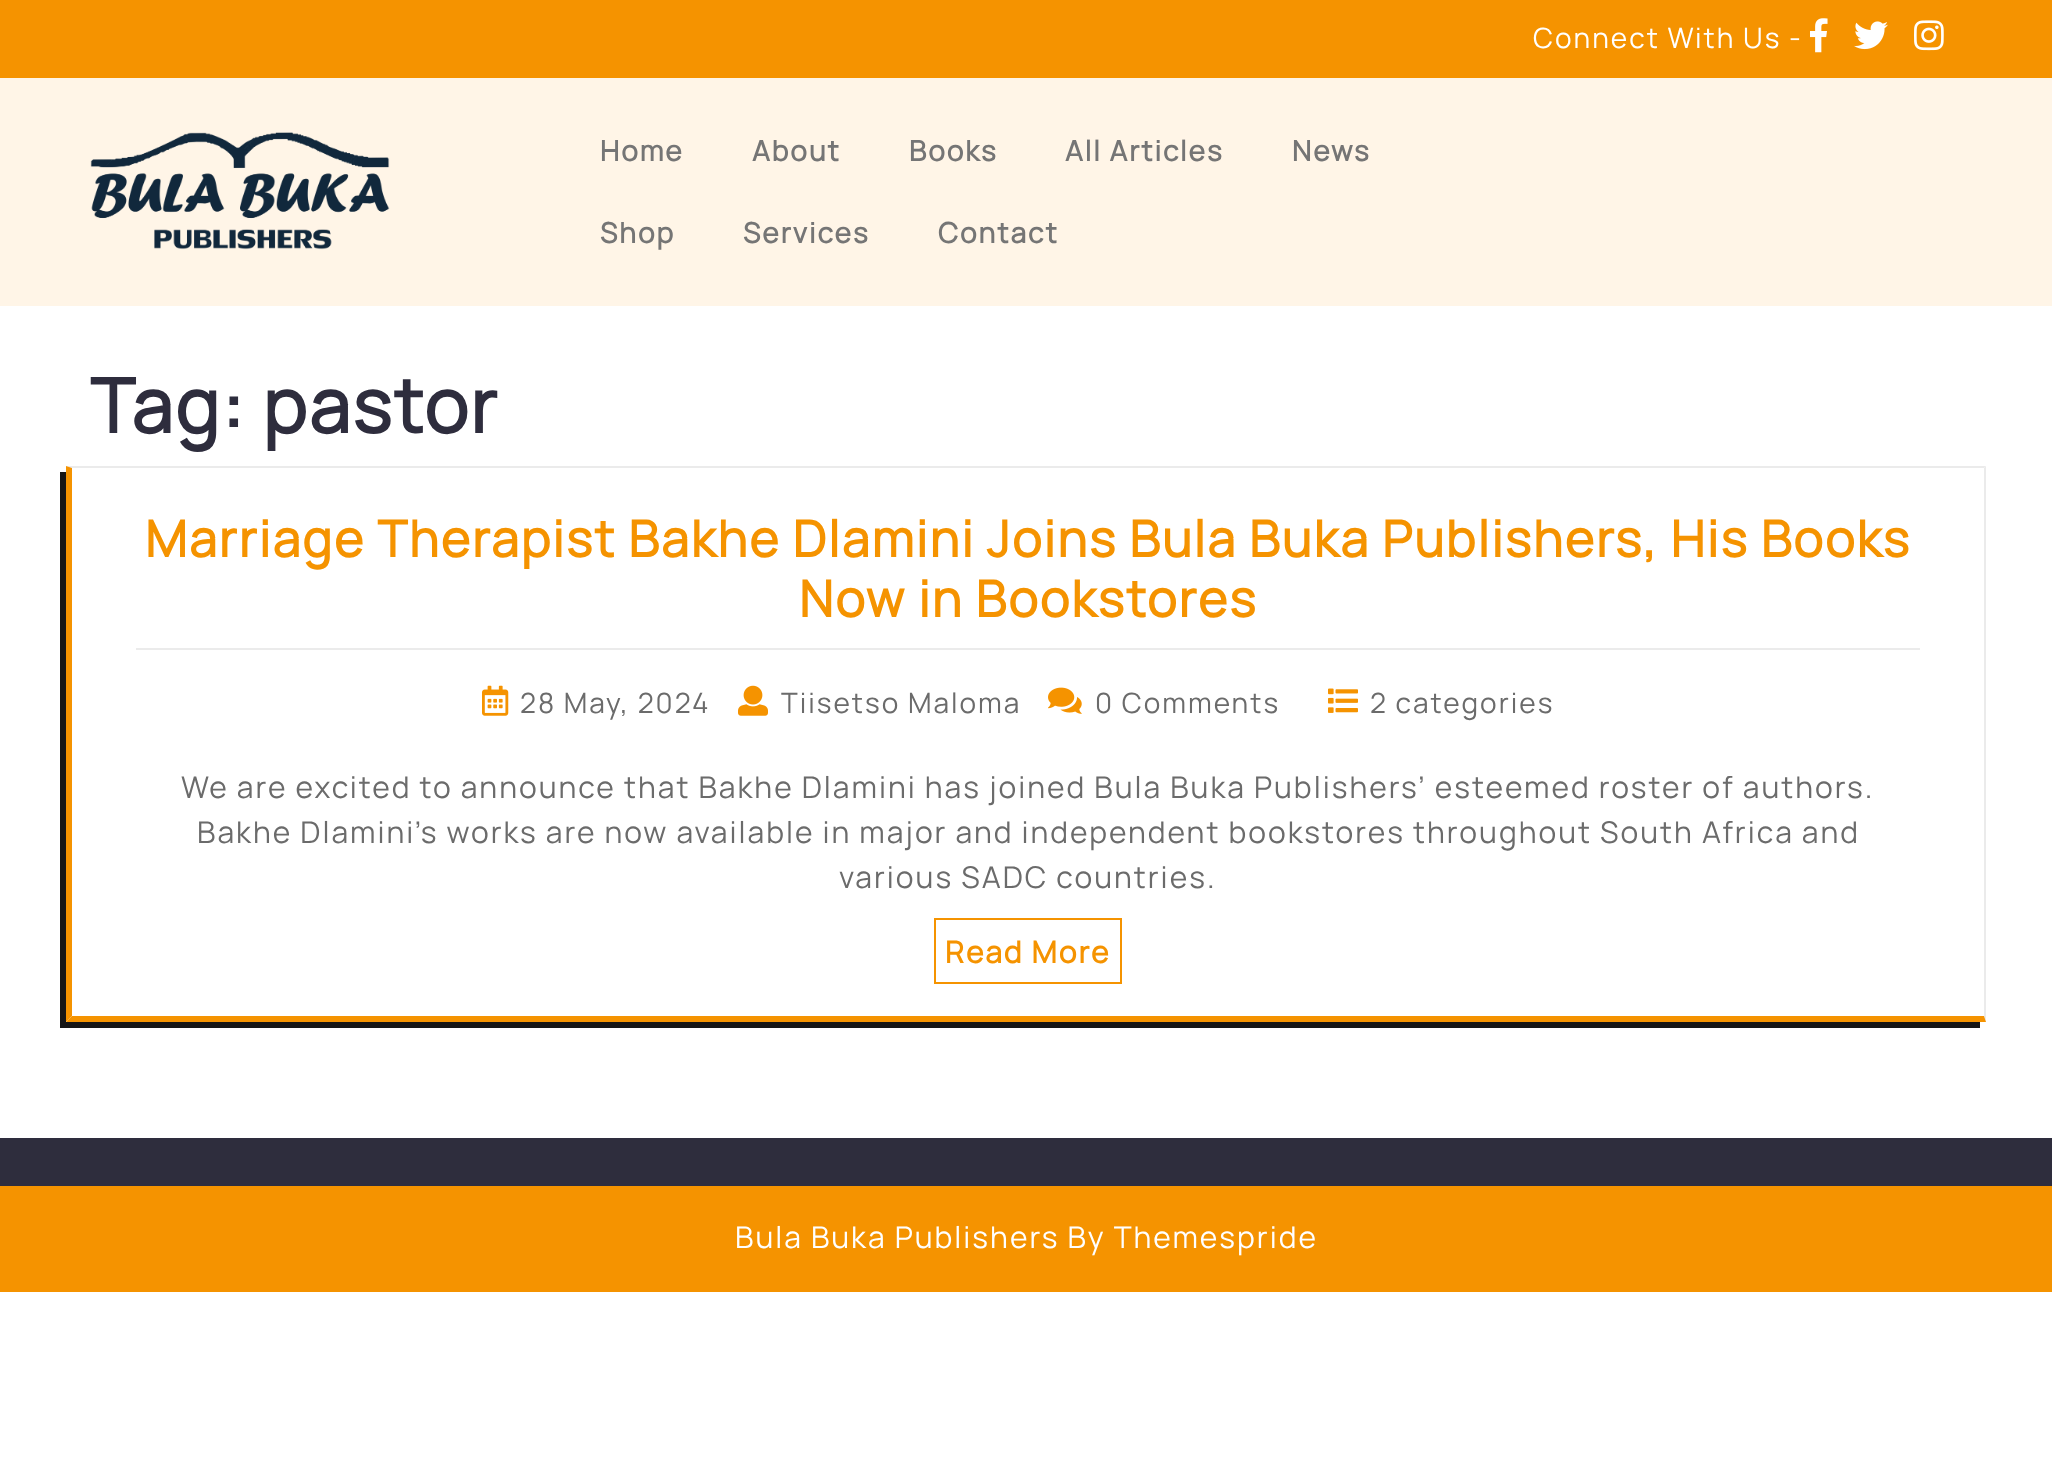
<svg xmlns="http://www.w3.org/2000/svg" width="2052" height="1481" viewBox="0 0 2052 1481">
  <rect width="100%" height="100%" fill="rgb(255,255,255)"/>
  <rect x="0" y="0" width="2052" height="78" fill="rgb(245,147,0)"/>
  <text x="1533" y="48" font-family="Manrope" font-size="28" font-weight="200" letter-spacing="2" fill="rgb(255,255,255)">Connect With Us -</text>
  <image x="1810" y="18" width="18" height="35" href="pic1.png"/>
  <image x="1854" y="21" width="34" height="29" href="pic2.png"/>
  <image x="1914" y="20" width="30" height="31" href="pic3.png"/>
  <rect x="0" y="78" width="2052" height="228" fill="rgb(255,245,231)"/>
  <image x="90" y="132" width="300" height="118" href="pic4.png"/>
  <g font-family="Manrope" font-size="28" font-weight="bold" letter-spacing="2" fill="rgb(117,117,117)">
    <text x="600" y="161">Home</text>
    <text x="752" y="161">About</text>
    <text x="909" y="161">Books</text>
    <text x="1065" y="161">All Articles</text>
    <text x="1292" y="161">News</text>
    <text x="600" y="243">Shop</text>
    <text x="743" y="243">Services</text>
    <text x="938" y="243">Contact</text>
  </g>
  <text x="90" y="433" font-family="Manrope" font-size="74.75" font-weight="bold" letter-spacing="2" fill="rgb(46,45,61)">Tag: pastor</text>
  <path d="M60 472V1028H1980V1022H66V472Z" fill="rgb(21,21,21)"/>
  <path d="M66 466H1986L1984 468H72Z" fill="rgb(235,235,235)"/>
  <path d="M1986 466V1022L1984 1016V468Z" fill="rgb(235,235,235)"/>
  <path d="M1986 1022H66L72 1016H1984Z" fill="rgb(245,147,0)"/>
  <path d="M66 1022V466L72 468V1016Z" fill="rgb(245,147,0)"/>
  <rect x="136" y="648" width="1784" height="2" fill="rgb(235,235,235)"/>
  <g font-family="Manrope" font-size="50" font-weight="bold" letter-spacing="2" fill="rgb(245,147,0)">
    <text x="145" y="557">Marriage Therapist Bakhe Dlamini Joins Bula Buka Publishers, His Books</text>
    <text x="799" y="617">Now in Bookstores</text>
  </g>
  <image x="482" y="685" width="27" height="31" href="pic5.png"/>
  <text x="520" y="713" font-family="Manrope" font-size="28" font-weight="200" letter-spacing="2" fill="rgb(107,107,107)">28 May, 2024</text>
  <image x="738" y="685" width="30" height="31" href="pic6.png"/>
  <text x="781" y="713" font-family="Manrope" font-size="28" font-weight="200" letter-spacing="2" fill="rgb(107,107,107)">Tiisetso Maloma</text>
  <image x="1048" y="687" width="34" height="27" href="pic7.png"/>
  <text x="1095" y="713" font-family="Manrope" font-size="28" font-weight="200" letter-spacing="2" fill="rgb(107,107,107)">0 Comments</text>
  <image x="1328" y="688" width="30" height="25" href="pic8.png"/>
  <text x="1370" y="713" font-family="Manrope" font-size="28" font-weight="200" letter-spacing="2" fill="rgb(107,107,107)">2 categories</text>
  <g font-family="Manrope" font-size="30" font-weight="200" letter-spacing="2" fill="rgb(107,107,107)">
    <text x="181" y="798">We are excited to announce that Bakhe Dlamini has joined Bula Buka Publishers’ esteemed roster of authors.</text>
    <text x="197" y="843">Bakhe Dlamini’s works are now available in major and independent bookstores throughout South Africa and</text>
    <text x="839" y="888">various SADC countries.</text>
  </g>
  <rect x="935" y="919" width="186" height="64" fill="none" stroke="rgb(245,147,0)" stroke-width="2"/>
  <text x="945" y="963" font-family="Manrope" font-size="30" font-weight="bold" letter-spacing="2" fill="rgb(245,147,0)">Read More</text>
  <rect x="0" y="1138" width="2052" height="48" fill="rgb(46,45,61)"/>
  <rect x="0" y="1186" width="2052" height="106" fill="rgb(245,147,0)"/>
  <text x="735" y="1248" font-family="Manrope" font-size="30" font-weight="200" letter-spacing="2" fill="rgb(255,255,255)">Bula Buka Publishers By Themespride</text>
</svg>
